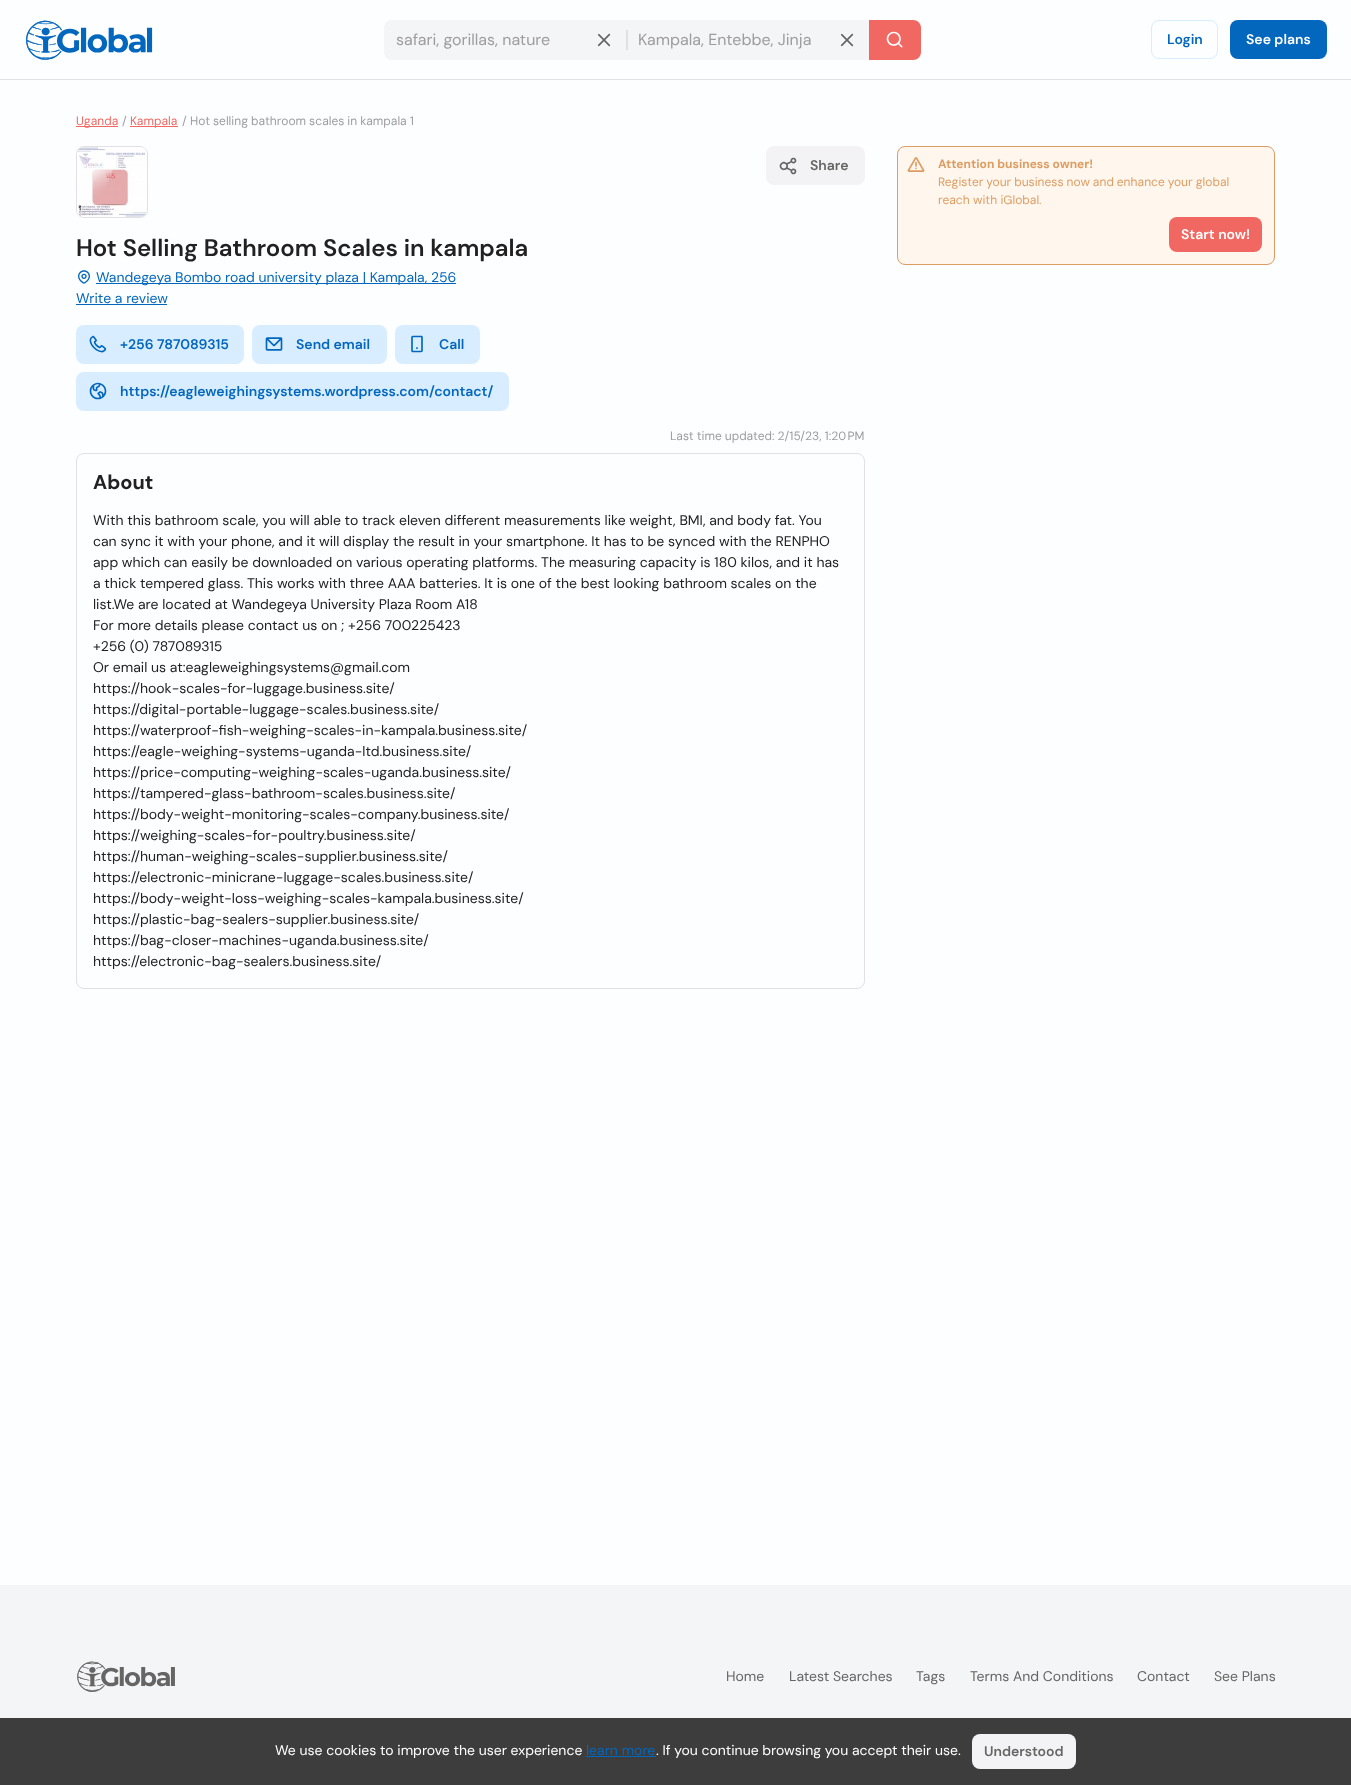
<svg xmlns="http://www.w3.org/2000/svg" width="1351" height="1785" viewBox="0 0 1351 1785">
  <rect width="100%" height="100%" fill="rgb(252,254,255)"/>
  <rect x="0" y="79" width="1351" height="1" fill="rgb(225,225,229)"/>
  <image x="26" y="20" width="127" height="40" href="pic1.png"/>
  <path d="M392 20H626V60H392C387.5 60 384 56.5 384 52V28C384 23.5 387.5 20 392 20Z" fill="rgb(244,245,246)"/>
  <text x="396" y="45" font-family="'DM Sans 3'" font-size="16" fill="rgb(157,156,158)">safari, gorillas, nature</text>
  <image x="597" y="33" width="14" height="14" href="pic2.png"/>
  <rect x="626" y="20" width="243" height="40" fill="rgb(244,245,246)"/>
  <rect x="626" y="30" width="2" height="20" fill="rgb(225,225,229)"/>
  <text x="638" y="45" font-family="'DM Sans 3'" font-size="16" fill="rgb(157,156,158)">Kampala, Entebbe, Jinja</text>
  <image x="840" y="33" width="14" height="14" href="pic2.png"/>
  <path d="M869 20H913C917.5 20 921 23.5 921 28V52C921 56.5 917.5 60 913 60H869Z" fill="rgb(241,104,98)"/>
  <image x="886" y="31" width="17" height="17" href="pic3.png"/>
  <rect x="1151.5" y="20.5" width="66" height="38" rx="7.5" fill="none" stroke="rgb(216,237,255)"/>
  <text x="1167" y="44" font-family="'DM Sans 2'" font-size="14" font-weight="600" fill="rgb(3,103,189)">Login</text>
  <rect x="1230" y="20" width="97" height="39" rx="8" fill="rgb(3,103,189)"/>
  <text x="1246" y="44" font-family="'DM Sans 2'" font-size="14" font-weight="600" fill="rgb(255,255,255)">See plans</text>
  <rect x="76" y="126" width="42" height="1" fill="rgb(241,104,98)"/>
  <text x="76" y="125" font-family="DM Sans" font-size="12" fill="rgb(241,104,98)">Uganda</text>
  <text x="122" y="125" font-family="DM Sans" font-size="12" fill="rgb(157,156,158)">/</text>
  <rect x="130" y="126" width="48" height="1" fill="rgb(241,104,98)"/>
  <text x="130" y="125" font-family="DM Sans" font-size="12" fill="rgb(241,104,98)">Kampala</text>
  <g font-family="DM Sans" font-size="12" fill="rgb(157,156,158)">
    <text x="182" y="125">/</text>
    <text x="190" y="125" word-spacing="-0.25">Hot selling bathroom scales in kampala 1</text>
  </g>
  <rect x="76.5" y="146.5" width="71" height="71" rx="7.5" fill="none" stroke="rgb(225,225,229)"/>
  <image x="77" y="147" width="70" height="70" href="pic4.png"/>
  <rect x="766" y="146" width="99" height="39" rx="8" fill="rgb(243,243,245)"/>
  <image x="779" y="157" width="18" height="18" href="pic5.png"/>
  <text x="810" y="170" font-family="'DM Sans 2'" font-size="14" font-weight="600" fill="rgb(101,101,102)">Share</text>
  <text x="76" y="256" font-family="DM Sans" font-size="24" font-weight="600" fill="rgb(33,33,33)">Hot Selling Bathroom Scales in kampala</text>
  <image x="78" y="270" width="12" height="14" href="pic6.png"/>
  <rect x="96" y="283" width="360" height="1" fill="rgb(3,103,189)"/>
  <g font-family="'DM Sans 2'" font-size="14" fill="rgb(3,103,189)">
    <text x="96" y="282">Wandegeya Bombo road university plaza | Kampala, 256</text>
    <text x="76" y="303">Write a review</text>
  </g>
  <rect x="76" y="304" width="91" height="1" fill="rgb(3,103,189)"/>
  <rect x="76" y="325" width="168" height="39" rx="8" fill="rgb(216,237,255)"/>
  <image x="89" y="335" width="18" height="18" href="pic7.png"/>
  <text x="120" y="349" font-family="'DM Sans 2'" font-size="14" font-weight="600" fill="rgb(3,103,189)">+256 787089315</text>
  <rect x="252" y="325" width="135" height="39" rx="8" fill="rgb(216,237,255)"/>
  <image x="265" y="337" width="18" height="14" href="pic8.png"/>
  <text x="296" y="349" font-family="'DM Sans 2'" font-size="14" font-weight="600" fill="rgb(3,103,189)">Send email</text>
  <rect x="395" y="325" width="85" height="39" rx="8" fill="rgb(216,237,255)"/>
  <image x="411" y="335" width="12" height="18" href="pic9.png"/>
  <text x="439" y="349" font-family="'DM Sans 2'" font-size="14" font-weight="600" fill="rgb(3,103,189)">Call</text>
  <rect x="76" y="372" width="433" height="39" rx="8" fill="rgb(216,237,255)"/>
  <image x="89" y="382" width="18" height="18" href="pic10.png"/>
  <text x="120" y="396" font-family="'DM Sans 2'" font-size="14" font-weight="600" fill="rgb(3,103,189)">https://eagleweighingsystems.wordpress.com/contact/</text>
  <text x="670" y="440" word-spacing="-0.25" font-family="DM Sans" font-size="12" fill="rgb(157,156,158)">Last time updated: 2/15/23, 1:20 PM</text>
  <rect x="76.5" y="453.5" width="788" height="535" rx="7.5" fill="none" stroke="rgb(225,225,229)"/>
  <text x="93" y="489" font-family="'DM Sans 2'" font-size="20" font-weight="bold" fill="rgb(33,33,33)">About</text>
  <g font-family="'DM Sans 2'" font-size="14" fill="rgb(33,33,33)">
    <text>
      <tspan x="93" y="525">With this bathroom scale, you will able to track eleven different measurements like weight, BMI, and body fat. You</tspan>
      <tspan x="93" y="546">can sync it with your phone, and it will display the result in your smartphone. It has to be synced with the RENPHO</tspan>
      <tspan x="93" y="567">app which can easily be downloaded on various operating platforms. The measuring capacity is 180 kilos, and it has</tspan>
      <tspan x="93" y="588">a thick tempered glass. This works with three AAA batteries. It is one of the best looking bathroom scales on the</tspan>
      <tspan x="93" y="609">list.We are located at Wandegeya University Plaza Room A18</tspan>
      <tspan x="93" y="630">For more details please contact us on ; +256 700225423</tspan>
      <tspan x="93" y="651">+256 (0) 787089315</tspan>
      <tspan x="93" y="672">Or email us at:eagleweighingsystems@gmail.com</tspan>
      <tspan x="93" y="693">https://hook-scales-for-luggage.business.site/</tspan>
      <tspan x="93" y="714">https://digital-portable-luggage-scales.business.site/</tspan>
      <tspan x="93" y="735">https://waterproof-fish-weighing-scales-in-kampala.business.site/</tspan>
      <tspan x="93" y="756">https://eagle-weighing-systems-uganda-ltd.business.site/</tspan>
      <tspan x="93" y="777">https://price-computing-weighing-scales-uganda.business.site/</tspan>
      <tspan x="93" y="798">https://tampered-glass-bathroom-scales.business.site/</tspan>
      <tspan x="93" y="819">https://body-weight-monitoring-scales-company.business.site/</tspan>
      <tspan x="93" y="840">https://weighing-scales-for-poultry.business.site/</tspan>
      <tspan x="93" y="861">https://human-weighing-scales-supplier.business.site/</tspan>
      <tspan x="93" y="882">https://electronic-minicrane-luggage-scales.business.site/</tspan>
      <tspan x="93" y="903">https://body-weight-loss-weighing-scales-kampala.business.site/</tspan>
      <tspan x="93" y="924">https://plastic-bag-sealers-supplier.business.site/</tspan>
      <tspan x="93" y="945">https://bag-closer-machines-uganda.business.site/</tspan>
      <tspan x="93" y="966">https://electronic-bag-sealers.business.site/</tspan>
    </text>
  </g>
  <rect x="897.5" y="146.5" width="377" height="118" rx="7.5" fill="rgb(255,246,237)" stroke="rgb(221,157,98)"/>
  <image x="907" y="157" width="18" height="15" href="pic11.png"/>
  <text x="938" y="168" font-family="DM Sans" font-size="12" font-weight="bold" fill="rgb(221,157,98)">Attention business owner!</text>
  <g font-family="DM Sans" font-size="12" fill="rgb(221,157,98)">
    <text>
      <tspan x="938" y="186" word-spacing="-0.25">Register your business now and enhance your global</tspan>
      <tspan x="938" y="204">reach with iGlobal.</tspan>
    </text>
  </g>
  <rect x="1169" y="217" width="93" height="35" rx="8" fill="rgb(241,104,98)"/>
  <text x="1181" y="239" font-family="'DM Sans 2'" font-size="14" font-weight="600" fill="rgb(255,255,255)">Start now!</text>
  <rect x="0" y="1585" width="1351" height="133" fill="rgb(244,245,246)"/>
  <rect x="0" y="1718" width="1351" height="67" fill="rgb(61,61,62)"/>
  <image x="77" y="1661" width="98" height="31" href="pic12.png"/>
  <g font-family="'DM Sans 2'" font-size="14" fill="rgb(101,101,102)">
    <text x="726" y="1681">Home</text>
    <text x="789" y="1681">Latest Searches</text>
    <text x="916" y="1681">Tags</text>
    <text x="970" y="1681">Terms And Conditions</text>
    <text x="1137" y="1681">Contact</text>
    <text x="1214" y="1681">See Plans</text>
  </g>
  <text x="275" y="1755" font-family="'DM Sans 2'" font-size="14" fill="rgb(255,255,255)">We use cookies to improve the user experience</text>
  <text x="586" y="1755" font-family="'DM Sans 2'" font-size="14" fill="rgb(3,103,189)">learn more</text>
  <rect x="586" y="1756" width="70" height="1" fill="rgb(3,103,189)"/>
  <text x="656" y="1755" font-family="'DM Sans 2'" font-size="14" fill="rgb(255,255,255)">. If you continue browsing you accept their use.</text>
  <rect x="972" y="1734" width="104" height="35" rx="8" fill="rgb(243,243,245)"/>
  <text x="984" y="1756" font-family="'DM Sans 2'" font-size="14" font-weight="600" fill="rgb(101,101,102)">Understood</text>
</svg>
